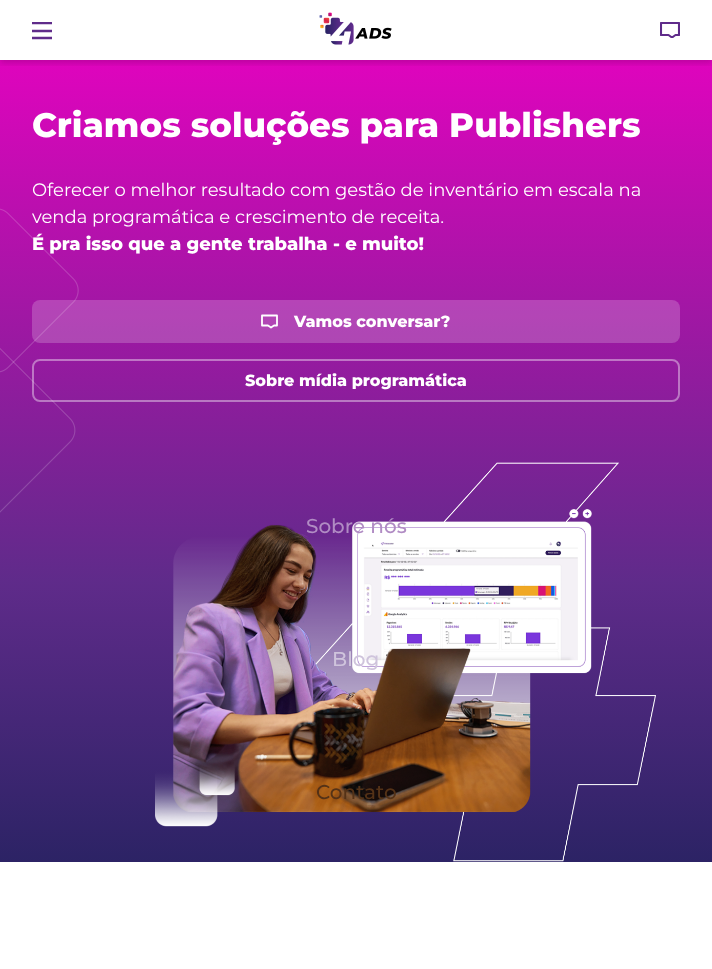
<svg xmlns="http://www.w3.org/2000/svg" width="712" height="969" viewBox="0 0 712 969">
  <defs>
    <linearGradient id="g1" gradientUnits="userSpaceOnUse" x1="356" y1="60" x2="356" y2="862"><stop offset="0" stop-color="rgb(223,4,189)"/><stop offset="0.65" stop-color="rgb(95,43,138)"/><stop offset="1" stop-color="rgb(44,35,101)"/></linearGradient>
    <clipPath id="clip1"><rect x="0" y="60" width="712" height="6"/></clipPath>
    <clipPath id="clip2"><rect x="32" y="22" width="20" height="18"/></clipPath>
    <clipPath id="clip3"><rect x="660" y="22" width="20" height="16"/></clipPath>
  </defs>
  <rect width="100%" height="100%" fill="rgb(255,255,255)"/>
  <rect x="0" y="60" width="712" height="802" fill="url(#g1)"/>
  <text x="32" y="137" font-family="Montserrat" font-size="34" font-weight="800" fill="rgb(255,255,255)">Criamos soluções para Publishers</text>
  <text x="32" y="196" font-family="Montserrat" font-size="18" fill="rgb(255,255,255)">Oferecer o melhor resultado com gestão de inventário em escala na</text>
  <image x="0" y="208" width="79" height="305" href="pic2.png"/>
  <text x="32" y="223" font-family="Montserrat" font-size="18" fill="rgb(255,255,255)">venda programática e crescimento de receita.</text>
  <text x="32" y="250" font-family="Montserrat" font-size="18" font-weight="800" fill="rgb(255,255,255)">É pra isso que a gente trabalha - e muito!</text>
  <rect x="32" y="300" width="648" height="43" rx="8" fill="rgba(255,255,255,0.2)"/>
  <path d="M262 315.5H277V325.5H274L271 327.5L268 325.5H262Z" fill="none" stroke="rgb(255,255,255)" stroke-width="1.8" stroke-linecap="round" stroke-linejoin="round"/>
  <text x="294" y="327" font-family="Montserrat" font-size="16" font-weight="800" fill="rgb(255,255,255)">Vamos conversar?</text>
  <rect x="33" y="360" width="646" height="41" rx="7" fill="none" stroke="rgba(255,255,255,0.4)" stroke-width="2"/>
  <text x="245" y="386" font-family="Montserrat" font-size="16" font-weight="800" fill="rgb(255,255,255)">Sobre mídia programática</text>
  <image x="155" y="462" width="501" height="400" href="pic1.png"/>
  <g clip-path="url(#clip1)">
    <rect x="0" y="3" width="712" height="60" fill="rgba(0,0,0,0.16)" filter="blur(3px)"/>
  </g>
  <g clip-path="url(#clip2)">
    <path d="M32 23H52" fill="none" stroke="rgb(95,43,138)" stroke-width="2.5"/>
  </g>
  <path d="M32 31H52M32 38H52" fill="none" stroke="rgb(95,43,138)" stroke-width="2.5"/>
  <image x="319" y="12" width="73" height="33" href="pic3.png"/>
  <g clip-path="url(#clip3)">
    <path d="M661 23H679V35H675.5L672 37.5L668.5 35H661Z" fill="none" stroke="rgb(95,43,138)" stroke-width="2.1" stroke-linecap="round" stroke-linejoin="round"/>
  </g>
  <text x="306" y="533" font-family="Montserrat" font-size="20" font-weight="500" fill="rgb(177,140,196)">Sobre nós</text>
  <text x="332" y="666" font-family="Montserrat" font-size="20" font-weight="500" fill="rgb(207,196,220)">Blog</text>
  <text x="316" y="799" font-family="Montserrat" font-size="20" font-weight="500" fill="rgb(84,50,23)">Contato</text>
</svg>
